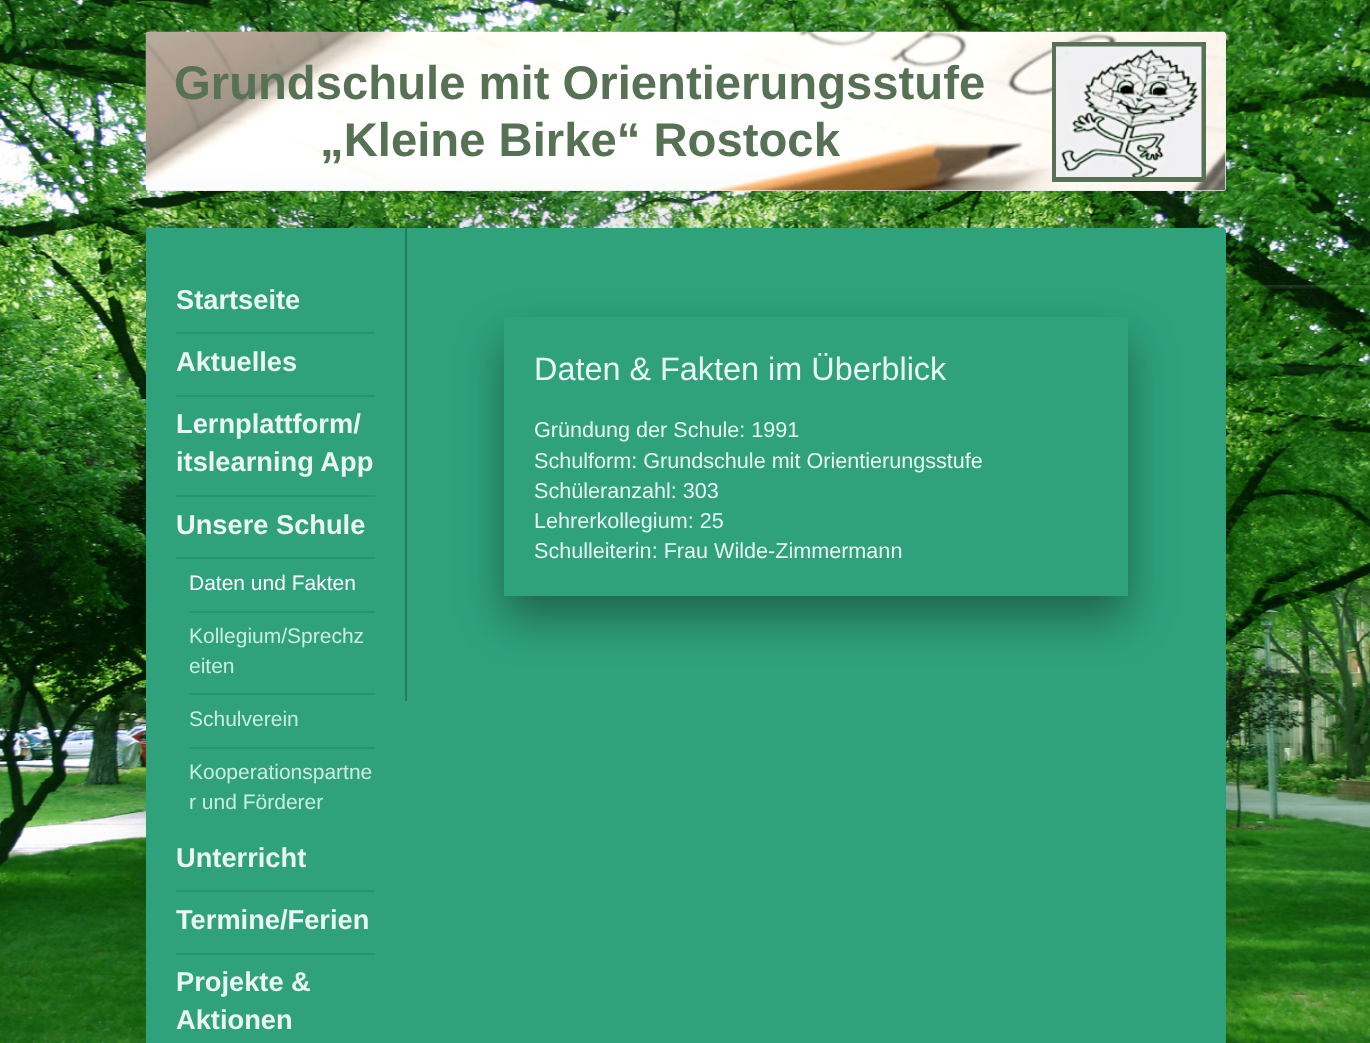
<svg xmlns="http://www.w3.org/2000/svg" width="1370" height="1043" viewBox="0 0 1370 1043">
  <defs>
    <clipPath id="clip1"><rect x="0" y="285" width="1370" height="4"/></clipPath>
    <clipPath id="clip2"><path d="M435 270H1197V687H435ZM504 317H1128V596H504Z" clip-rule="evenodd"/></clipPath>
  </defs>
  <rect width="100%" height="100%" fill="rgb(255,255,255)"/>
  <image x="0" y="0" width="1370" height="1043" href="pic1.png"/>
  <g clip-path="url(#clip1)">
    <rect x="0" y="3" width="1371" height="285" fill="rgba(255,255,255,0.1)" filter="blur(1px)"/>
  </g>
  <rect x="146" y="32" width="1080" height="159" rx="3" fill="rgb(238,238,238)"/>
  <image x="145" y="31" width="1081" height="160" href="pic2.png"/>
  <text x="174" y="99" font-family="Liberation Sans" font-size="47.25" font-weight="bold" fill="rgb(87,113,84)">Grundschule mit Orientierungsstufe</text>
  <rect x="146" y="213" width="1080" height="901" rx="3" fill="rgba(0,0,0,0.1)" filter="blur(22.5px)"/>
  <text x="320" y="156" font-family="Liberation Sans" font-size="47.25" font-weight="bold" fill="rgb(87,113,84)">„Kleine Birke“ Rostock</text>
  <rect x="1054.5" y="44.5" width="149" height="135" fill="none" stroke="rgb(87,113,84)" stroke-width="5"/>
  <image x="1056" y="46" width="146" height="131" href="pic3.png"/>
  <rect x="146" y="228" width="1080" height="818" rx="3" fill="rgb(47,162,124)"/>
  <rect x="176" y="332" width="199" height="2" fill="rgb(42,146,112)"/>
  <text x="176" y="309" font-family="Liberation Sans" font-size="27.25" font-weight="bold" fill="rgb(234,246,242)">Startseite</text>
  <rect x="176" y="395" width="199" height="2" fill="rgb(42,146,112)"/>
  <text x="176" y="371" font-family="Liberation Sans" font-size="27.25" font-weight="bold" fill="rgb(234,246,242)">Aktuelles</text>
  <rect x="176" y="495" width="199" height="2" fill="rgb(42,146,112)"/>
  <g font-family="Liberation Sans" font-size="27.25" font-weight="bold" fill="rgb(234,246,242)">
    <text>
      <tspan x="176" y="433">Lernplattform/</tspan>
      <tspan x="176" y="471">itslearning App</tspan>
    </text>
  </g>
  <rect x="176" y="557" width="199" height="2" fill="rgb(42,146,112)"/>
  <text x="176" y="534" font-family="Liberation Sans" font-size="27.25" font-weight="bold" fill="rgb(234,246,242)">Unsere Schule</text>
  <rect x="189" y="611" width="186" height="2" fill="rgb(42,146,112)"/>
  <text x="189" y="590" font-family="Liberation Sans" font-size="21" fill="rgb(250,251,250)">Daten und Fakten</text>
  <rect x="189" y="693" width="186" height="2" fill="rgb(42,146,112)"/>
  <g font-family="Liberation Sans" font-size="21" fill="rgb(202,236,225)">
    <text>
      <tspan x="189" y="643">Kollegium/Sprechz</tspan>
      <tspan x="189" y="673">eiten</tspan>
    </text>
  </g>
  <rect x="189" y="747" width="186" height="2" fill="rgb(42,146,112)"/>
  <g font-family="Liberation Sans" font-size="21" fill="rgb(202,236,225)">
    <text x="189" y="726">Schulverein</text>
    <text>
      <tspan x="189" y="779">Kooperationspartne</tspan>
      <tspan x="189" y="809">r und Förderer</tspan>
    </text>
  </g>
  <rect x="176" y="890" width="199" height="2" fill="rgb(42,146,112)"/>
  <text x="176" y="867" font-family="Liberation Sans" font-size="27.25" font-weight="bold" fill="rgb(234,246,242)">Unterricht</text>
  <rect x="176" y="953" width="199" height="2" fill="rgb(42,146,112)"/>
  <g font-family="Liberation Sans" font-size="27.25" font-weight="bold" fill="rgb(234,246,242)">
    <text x="176" y="929">Termine/Ferien</text>
    <text>
      <tspan x="176" y="991">Projekte &amp;</tspan>
      <tspan x="176" y="1029">Aktionen</tspan>
    </text>
  </g>
  <rect x="405" y="228" width="2" height="473" fill="rgb(36,122,94)"/>
  <g clip-path="url(#clip2)">
    <rect x="504" y="339" width="624" height="279" fill="rgba(0,0,0,0.38)" filter="blur(22.5px)"/>
  </g>
  <text x="534" y="380" font-family="Liberation Sans" font-size="32.4" fill="rgb(234,246,242)">Daten &amp; Fakten im Überblick</text>
  <g font-family="Liberation Sans" font-size="21.6" fill="rgb(234,246,242)">
    <text>
      <tspan x="534" y="437">Gründung der Schule: 1991</tspan>
      <tspan x="534" y="468">Schulform: Grundschule mit Orientierungsstufe</tspan>
      <tspan x="534" y="498">Schüleranzahl: 303</tspan>
      <tspan x="534" y="528">Lehrerkollegium: 25</tspan>
      <tspan x="534" y="558">Schulleiterin: Frau Wilde-Zimmermann</tspan>
    </text>
  </g>
  <rect x="504" y="595" width="624" height="1" fill="rgba(47,162,124,0.85)"/>
</svg>
